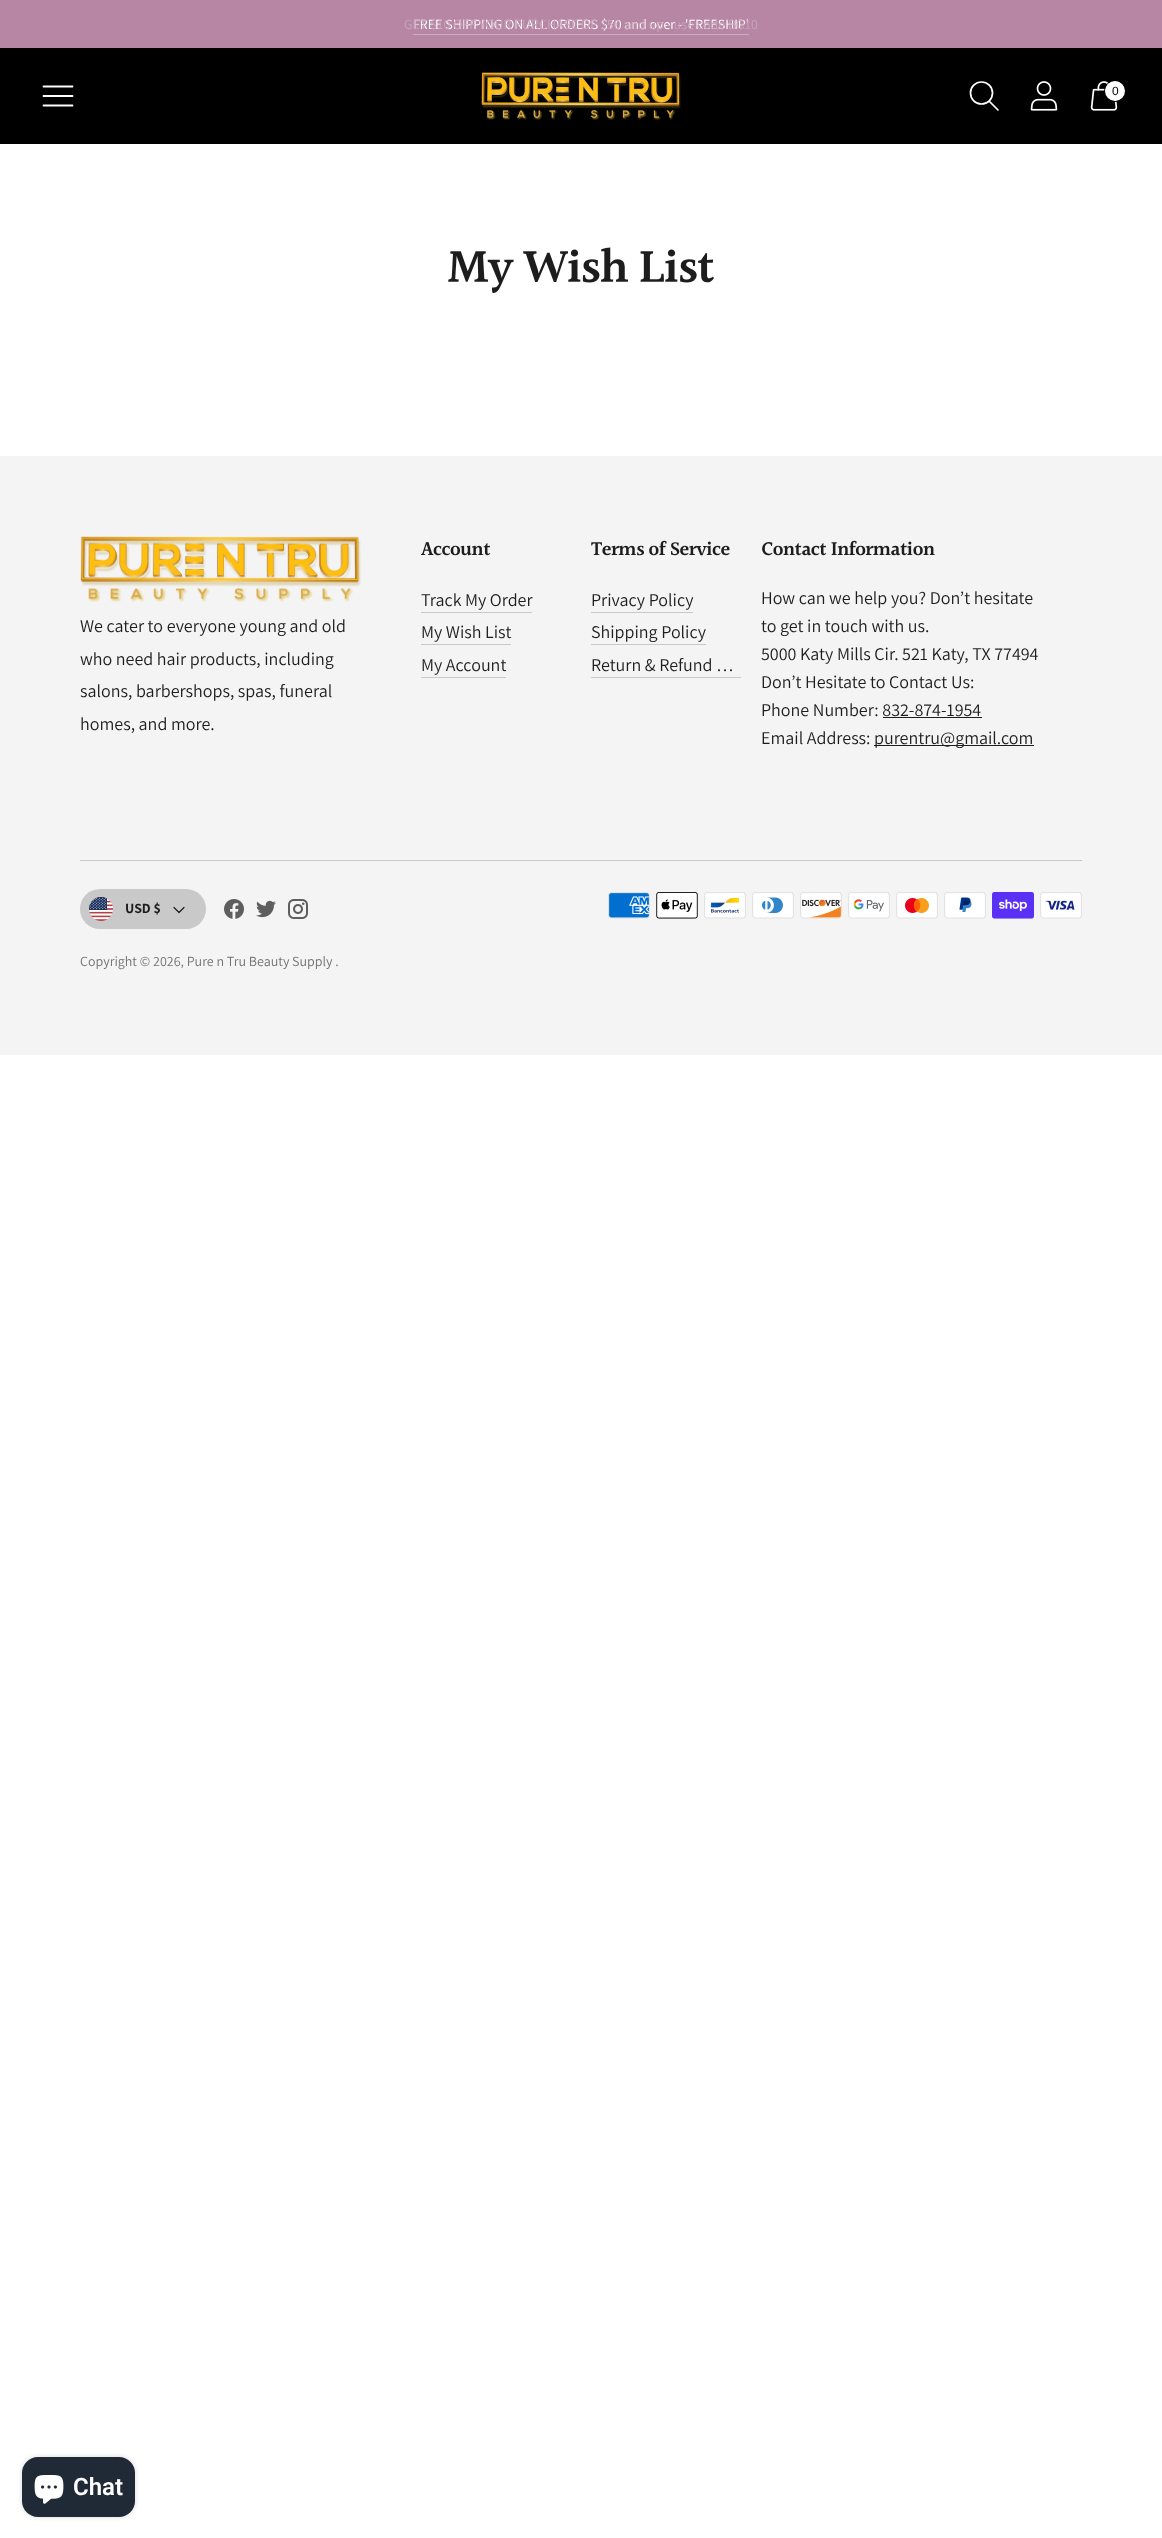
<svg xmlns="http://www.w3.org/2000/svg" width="1162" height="2538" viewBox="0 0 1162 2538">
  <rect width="100%" height="100%" fill="rgb(255,255,255)"/>
  <rect x="0" y="0" width="1162" height="48" fill="rgb(182,134,164)"/>
  <text x="413" y="29" font-family="Assistant" font-size="14" fill="rgb(255,255,255)">FREE SHIPPING ON ALL ORDERS $70 and over - 'FREESHIP'</text>
  <text x="404" y="29" font-family="Assistant" font-size="14" fill="rgb(200,163,186)">GET $10 OFF YOUR PURCHASE OF $50 and up - use code BG10</text>
  <rect x="413" y="34" width="336" height="1" fill="rgb(204,170,191)"/>
  <rect x="0" y="48" width="1162" height="96" fill="rgb(0,0,0)"/>
  <path d="M43.5 96H72.5M43.5 86.5H72.5M43.5 105.5H72.5" fill="none" stroke="rgb(255,255,255)" stroke-width="1.8" stroke-linecap="round" stroke-linejoin="round"/>
  <image x="481" y="72" width="200" height="48" href="pic1.png"/>
  <circle cx="981.5" cy="93" r="11" fill="none" stroke="rgb(255,255,255)" stroke-width="1.7"/>
  <path d="M989.5 101.5L998 110" fill="none" stroke="rgb(255,255,255)" stroke-width="1.7" stroke-linecap="round" stroke-linejoin="round"/>
  <image x="1030" y="81" width="28" height="30" href="pic2.png"/>
  <image x="1090" y="81" width="28" height="30" href="pic3.png"/>
  <circle cx="1115" cy="91" r="10.5" fill="none" stroke="rgb(0,0,0)"/>
  <circle cx="1115" cy="91" r="10" fill="rgb(255,255,255)"/>
  <text x="1112" y="95" font-family="Liberation Sans" font-size="12" fill="rgb(0,0,0)">0</text>
  <text x="447" y="284" font-family="Halant" font-size="48" font-weight="600" letter-spacing="-1.25" fill="rgb(29,29,29)">My Wish List</text>
  <rect x="0" y="456" width="1162" height="599" fill="rgb(244,244,244)"/>
  <image x="80" y="536" width="281" height="66" href="pic4.png"/>
  <g font-family="Assistant" font-size="18" fill="rgb(29,29,29)">
    <text>
      <tspan x="80" y="632">We cater to everyone young and old</tspan>
      <tspan x="80" y="665">who need hair products, including</tspan>
      <tspan x="80" y="697">salons, barbershops, spas, funeral</tspan>
      <tspan x="80" y="730">homes, and more.</tspan>
    </text>
  </g>
  <text x="421" y="556" font-family="Halant" font-size="20" font-weight="600" letter-spacing="-0.5" fill="rgb(29,29,29)">Account</text>
  <text x="421" y="606" font-family="Assistant" font-size="18" fill="rgb(29,29,29)">Track My Order</text>
  <rect x="421" y="612" width="111" height="1" fill="rgb(201,201,201)"/>
  <text x="421" y="638" font-family="Assistant" font-size="18" fill="rgb(29,29,29)">My Wish List</text>
  <rect x="421" y="644" width="90" height="1" fill="rgb(201,201,201)"/>
  <text x="421" y="671" font-family="Assistant" font-size="18" fill="rgb(29,29,29)">My Account</text>
  <rect x="421" y="677" width="85" height="1" fill="rgb(201,201,201)"/>
  <text x="591" y="556" font-family="Halant" font-size="20" font-weight="600" letter-spacing="-0.5" fill="rgb(29,29,29)">Terms of Service</text>
  <text x="591" y="606" font-family="Assistant" font-size="18" fill="rgb(29,29,29)">Privacy Policy</text>
  <rect x="591" y="612" width="102" height="1" fill="rgb(201,201,201)"/>
  <text x="591" y="638" font-family="Assistant" font-size="18" fill="rgb(29,29,29)">Shipping Policy</text>
  <rect x="591" y="644" width="115" height="1" fill="rgb(201,201,201)"/>
  <text x="591" y="671" font-family="Assistant" font-size="18" fill="rgb(29,29,29)">Return &amp; Refund …</text>
  <rect x="591" y="677" width="150" height="1" fill="rgb(201,201,201)"/>
  <text x="761" y="556" font-family="Halant" font-size="20" font-weight="600" letter-spacing="-0.5" fill="rgb(29,29,29)">Contact Information</text>
  <g font-family="Assistant" font-size="18" fill="rgb(29,29,29)">
    <text>
      <tspan x="761" y="604">How can we help you? Don’t hesitate</tspan>
      <tspan x="761" y="632">to get in touch with us.</tspan>
      <tspan x="761" y="660">5000 Katy Mills Cir. 521 Katy, TX 77494</tspan>
      <tspan x="761" y="688">Don’t Hesitate to Contact Us:</tspan>
      <tspan x="761" y="716">Phone Number: 832-874-1954</tspan>
    </text>
  </g>
  <rect x="883" y="717" width="99" height="1" fill="rgb(29,29,29)"/>
  <text x="761" y="744" font-family="Assistant" font-size="18" fill="rgb(29,29,29)">Email Address:</text>
  <rect x="874" y="745" width="160" height="1" fill="rgb(29,29,29)"/>
  <text x="874" y="744" font-family="Assistant" font-size="18" fill="rgb(29,29,29)">purentru@gmail.com</text>
  <rect x="80" y="860" width="1002" height="1" fill="rgb(201,201,201)"/>
  <rect x="80" y="889" width="126" height="40" rx="20" fill="rgb(201,201,201)"/>
  <image x="89" y="897" width="24" height="24" href="pic5.png"/>
  <text x="125" y="913" font-family="Assistant" font-size="14" font-weight="bold" fill="rgb(29,29,29)">USD $</text>
  <path d="M174 907.5L179 912.5L184 907.5" fill="none" stroke="rgb(29,29,29)" stroke-width="1.2" stroke-linecap="round" stroke-linejoin="round"/>
  <image x="224" y="899" width="20" height="20" href="pic6.png"/>
  <image x="256" y="900" width="20" height="18" href="pic7.png"/>
  <image x="288" y="899" width="20" height="20" href="pic8.png"/>
  <image x="608" y="892" width="42" height="27" href="pic9.png"/>
  <image x="656" y="892" width="42" height="27" href="pic10.png"/>
  <image x="704" y="892" width="42" height="27" href="pic11.png"/>
  <image x="752" y="892" width="42" height="27" href="pic12.png"/>
  <image x="800" y="892" width="42" height="27" href="pic13.png"/>
  <image x="848" y="892" width="42" height="27" href="pic14.png"/>
  <image x="896" y="892" width="42" height="27" href="pic15.png"/>
  <image x="944" y="892" width="42" height="27" href="pic16.png"/>
  <image x="992" y="892" width="42" height="27" href="pic17.png"/>
  <image x="1040" y="892" width="42" height="27" href="pic18.png"/>
  <text x="80" y="966" font-family="Assistant" font-size="14" fill="rgb(115,115,115)">Copyright © 2026, Pure n Tru Beauty Supply .</text>
  <rect x="22" y="2457" width="113" height="60" rx="16" fill="rgba(0,0,0,0.15)" filter="blur(2.5px)"/>
  <rect x="22" y="2457" width="113" height="60" rx="16" fill="rgb(32,42,54)"/>
  <image x="34" y="2475" width="30" height="29" href="pic19.png"/>
  <text x="73" y="2495" font-family="Roboto" font-size="24" font-weight="600" fill="rgb(255,255,255)">Chat</text>
</svg>
